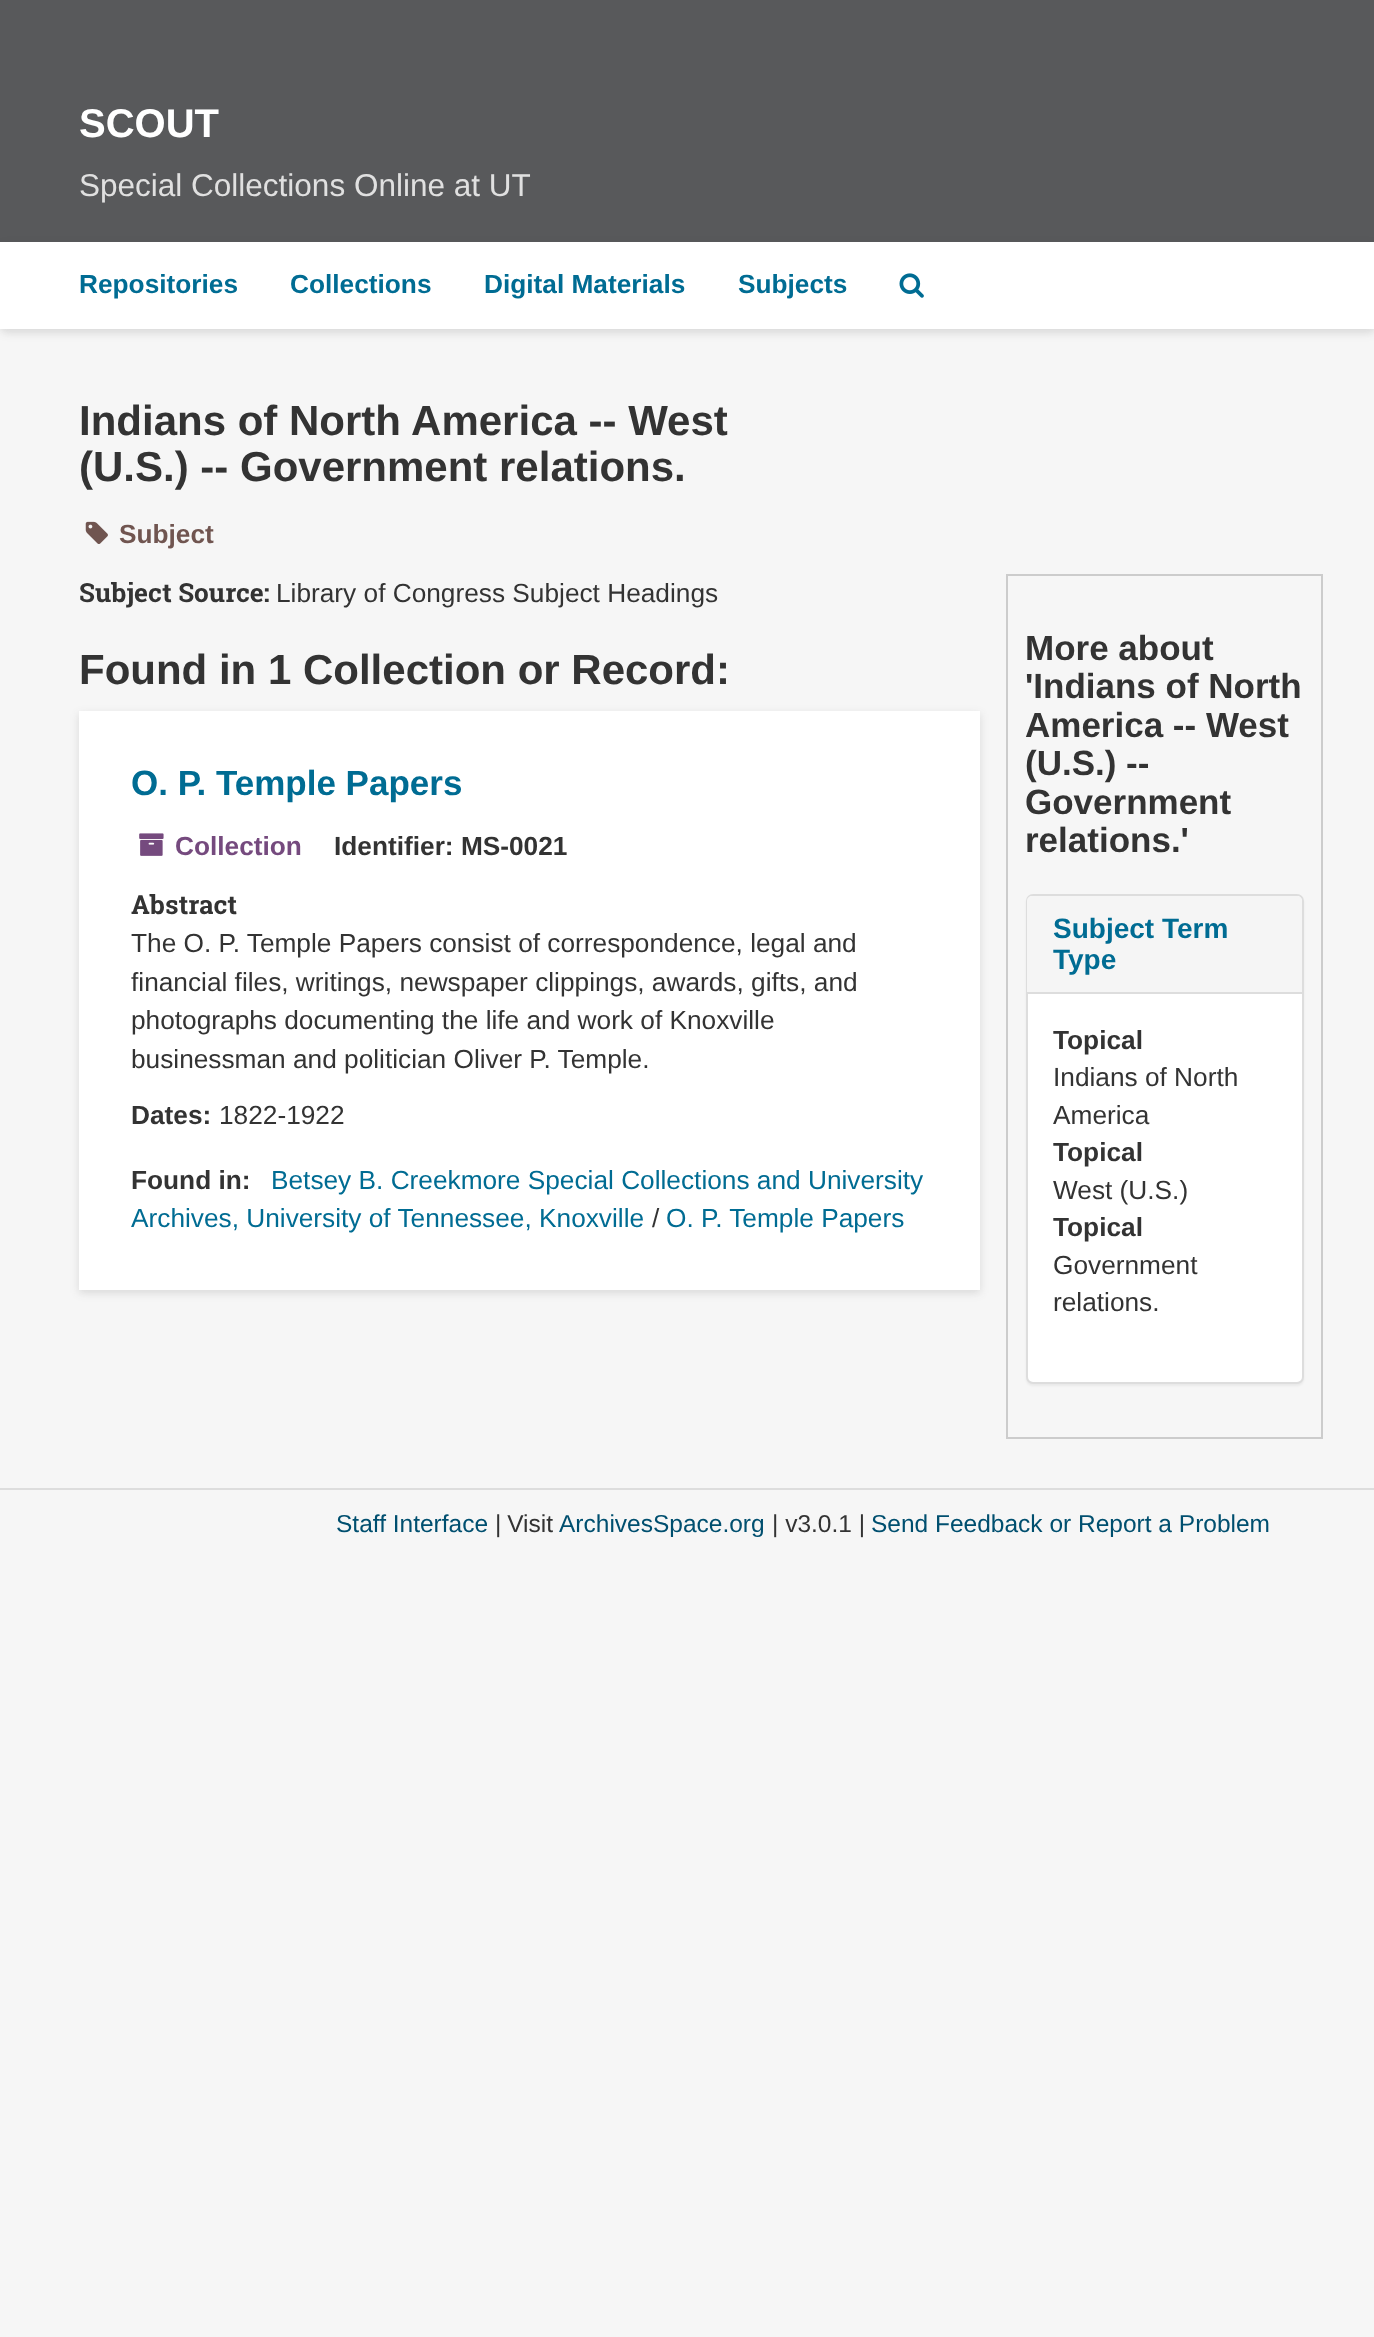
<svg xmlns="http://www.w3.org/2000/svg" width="1374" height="2337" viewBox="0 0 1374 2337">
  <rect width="100%" height="100%" fill="rgb(246,246,246)"/>
  <rect x="0" y="0" width="1374" height="242" fill="rgb(88,89,91)"/>
  <text x="79" y="137" font-family="Liberation Sans" font-size="40" font-weight="bold" fill="rgb(255,255,255)">SCOUT</text>
  <text x="79" y="196" font-family="Liberation Sans" font-size="31.5" fill="rgb(224,224,224)">Special Collections Online at UT</text>
  <rect x="0" y="245" width="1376" height="88" rx="7" fill="rgba(51,51,51,0.15)" filter="blur(4.5px)"/>
  <rect x="0" y="242" width="1374" height="87" fill="rgb(255,255,255)"/>
  <g font-family="Liberation Sans" font-size="26.25" font-weight="bold" fill="rgb(0,108,147)">
    <text x="79" y="293">Repositories</text>
    <text x="290" y="293">Collections</text>
    <text x="484" y="293">Digital Materials</text>
    <text x="738" y="293">Subjects</text>
  </g>
  <image x="899" y="273" width="25" height="25" href="pic1.png"/>
  <g font-family="Liberation Sans" font-size="42" font-weight="bold" fill="rgb(51,51,51)">
    <text>
      <tspan x="79" y="435">Indians of North America -- West</tspan>
      <tspan x="79" y="481">(U.S.) -- Government relations.</tspan>
    </text>
  </g>
  <image x="85" y="521" width="23" height="23" href="pic2.png"/>
  <text x="119" y="543" font-family="Liberation Sans" font-size="26.25" font-weight="bold" fill="rgb(112,85,80)">Subject</text>
  <text x="79" y="602" font-family="Roboto Slab" font-size="26.25" font-weight="bold" fill="rgb(51,51,51)">Subject Source:</text>
  <text x="276" y="602" font-family="Liberation Sans" font-size="26.25" fill="rgb(51,51,51)">Library of Congress Subject Headings</text>
  <text x="79" y="684" font-family="Liberation Sans" font-size="42" font-weight="bold" fill="rgb(51,51,51)">Found in 1 Collection or Record:</text>
  <rect x="79" y="714" width="901" height="579" fill="rgba(51,51,51,0.15)" filter="blur(4.5px)"/>
  <rect x="79" y="711" width="901" height="579" fill="rgb(255,255,255)"/>
  <text x="131" y="795" font-family="Liberation Sans" font-size="35" font-weight="bold" fill="rgb(0,108,147)">O. P. Temple Papers</text>
  <image x="139" y="833" width="25" height="23" href="pic3.png"/>
  <text x="175" y="855" font-family="Liberation Sans" font-size="26.25" font-weight="bold" fill="rgb(117,74,126)">Collection</text>
  <text x="334" y="855" font-family="Liberation Sans" font-size="26.25" font-weight="bold" fill="rgb(51,51,51)">Identifier: MS-0021</text>
  <text x="131" y="914" font-family="Roboto Slab" font-size="26.25" font-weight="bold" fill="rgb(51,51,51)">Abstract</text>
  <g font-family="Liberation Sans" font-size="26.25" fill="rgb(51,51,51)">
    <text>
      <tspan x="131" y="952">The O. P. Temple Papers consist of correspondence, legal and</tspan>
      <tspan x="131" y="991">financial files, writings, newspaper clippings, awards, gifts, and</tspan>
      <tspan x="131" y="1029">photographs documenting the life and work of Knoxville</tspan>
      <tspan x="131" y="1068">businessman and politician Oliver P. Temple.</tspan>
    </text>
  </g>
  <text x="131" y="1124" font-family="Liberation Sans" font-size="26.25" font-weight="bold" fill="rgb(51,51,51)">Dates:</text>
  <text x="219" y="1124" font-family="Liberation Sans" font-size="26.25" fill="rgb(51,51,51)">1822-1922</text>
  <text x="131" y="1189" font-family="Liberation Sans" font-size="26.25" font-weight="bold" fill="rgb(51,51,51)">Found in:</text>
  <g font-family="Liberation Sans" font-size="26.25" fill="rgb(0,108,147)">
    <text x="271" y="1189">Betsey B. Creekmore Special Collections and University</text>
    <text x="131" y="1227">Archives, University of Tennessee, Knoxville</text>
  </g>
  <text x="652" y="1227" font-family="Liberation Sans" font-size="26.25" fill="rgb(51,51,51)">/</text>
  <text x="666" y="1227" font-family="Liberation Sans" font-size="26.25" fill="rgb(0,108,147)">O. P. Temple Papers</text>
  <rect x="1007" y="575" width="315" height="863" fill="none" stroke="rgb(204,204,204)" stroke-width="2"/>
  <g font-family="Liberation Sans" font-size="35" font-weight="bold" fill="rgb(51,51,51)">
    <text>
      <tspan x="1025" y="660">More about</tspan>
      <tspan x="1025" y="698">'Indians of North</tspan>
      <tspan x="1025" y="737">America -- West</tspan>
      <tspan x="1025" y="775">(U.S.) --</tspan>
      <tspan x="1025" y="814">Government</tspan>
      <tspan x="1025" y="852">relations.'</tspan>
    </text>
  </g>
  <rect x="1026" y="896" width="278" height="490" rx="7" fill="rgba(0,0,0,0.05)" filter="blur(1px)"/>
  <rect x="1027" y="895" width="276" height="488" rx="6" fill="rgb(255,255,255)" stroke="rgb(221,221,221)" stroke-width="2"/>
  <path d="M1032 896H1297C1300 896 1302 898 1302 901V992H1027V901C1027 898 1029 896 1032 896Z" fill="rgb(245,245,245)"/>
  <g font-family="Liberation Sans" font-size="28" font-weight="bold" fill="rgb(0,108,147)">
    <text>
      <tspan x="1053" y="938">Subject Term</tspan>
      <tspan x="1053" y="969">Type</tspan>
    </text>
  </g>
  <rect x="1027" y="992" width="275" height="2" fill="rgb(221,221,221)"/>
  <text x="1053" y="1049" font-family="Liberation Sans" font-size="26.25" font-weight="bold" fill="rgb(51,51,51)">Topical</text>
  <g font-family="Liberation Sans" font-size="26.25" fill="rgb(51,51,51)">
    <text>
      <tspan x="1053" y="1086">Indians of North</tspan>
      <tspan x="1053" y="1124">America</tspan>
    </text>
  </g>
  <text x="1053" y="1161" font-family="Liberation Sans" font-size="26.25" font-weight="bold" fill="rgb(51,51,51)">Topical</text>
  <text x="1053" y="1199" font-family="Liberation Sans" font-size="26.25" fill="rgb(51,51,51)">West (U.S.)</text>
  <text x="1053" y="1236" font-family="Liberation Sans" font-size="26.25" font-weight="bold" fill="rgb(51,51,51)">Topical</text>
  <g font-family="Liberation Sans" font-size="26.25" fill="rgb(51,51,51)">
    <text>
      <tspan x="1053" y="1274">Government</tspan>
      <tspan x="1053" y="1311">relations.</tspan>
    </text>
  </g>
  <rect x="0" y="1488" width="1374" height="2" fill="rgb(221,221,221)"/>
  <text x="336" y="1532" font-family="Liberation Sans" font-size="24.5" fill="rgb(0,79,111)">Staff Interface</text>
  <text x="495" y="1532" word-spacing="-1" font-family="Liberation Sans" font-size="24.5" fill="rgb(51,51,51)">| Visit</text>
  <text x="559" y="1532" font-family="Liberation Sans" font-size="24.5" fill="rgb(0,79,111)">ArchivesSpace.org</text>
  <text x="772" y="1532" font-family="Liberation Sans" font-size="24.5" fill="rgb(51,51,51)">| v3.0.1 |</text>
  <text x="871" y="1532" font-family="Liberation Sans" font-size="24.5" fill="rgb(0,79,111)">Send Feedback or Report a Problem</text>
</svg>
